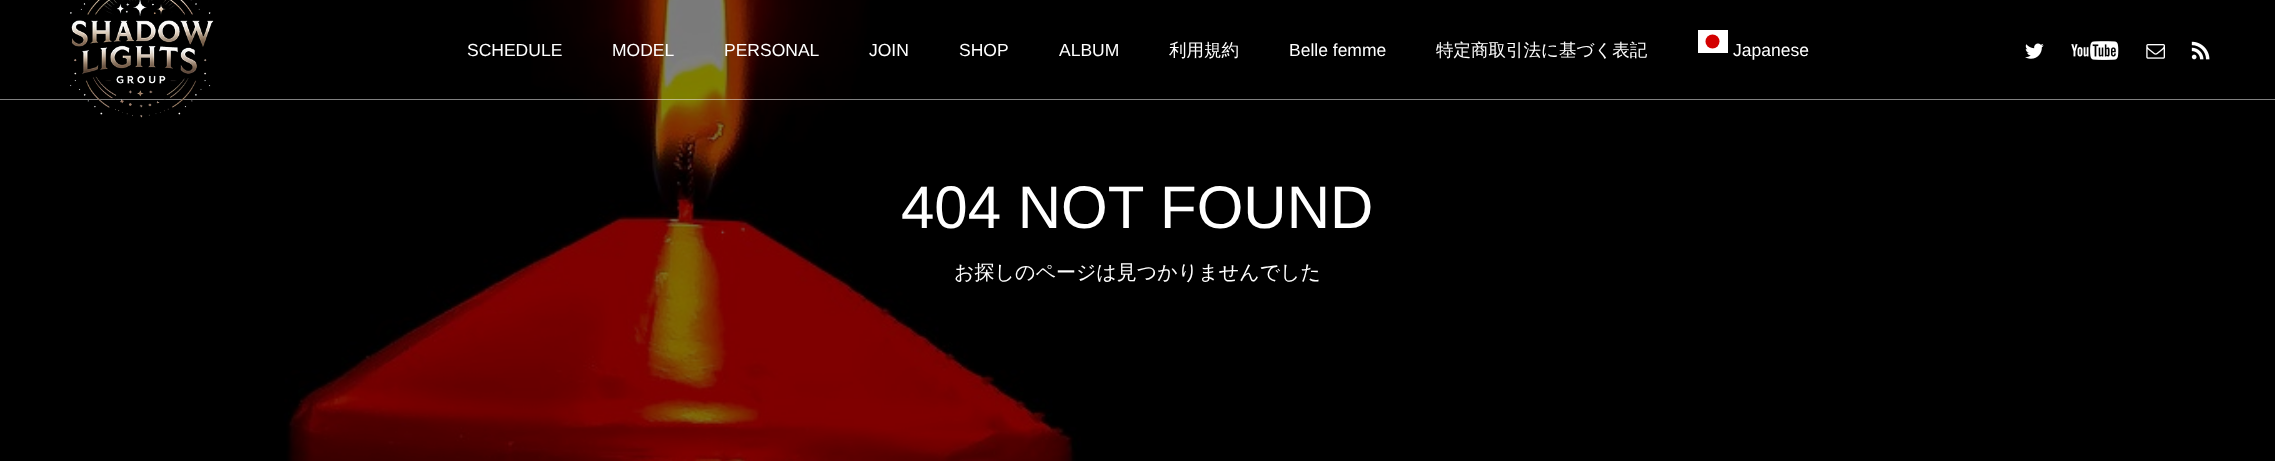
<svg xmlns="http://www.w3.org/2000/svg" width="2275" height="461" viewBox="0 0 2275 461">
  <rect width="100%" height="100%" fill="rgb(255,255,255)"/>
  <image x="0" y="0" width="2275" height="461" href="pic6.png"/>
  <rect x="0" y="99" width="2275" height="1" fill="rgba(255,255,255,0.5)"/>
  <image x="70" y="0" width="144" height="118" href="pic1.png"/>
  <g font-family="Liberation Sans" font-size="17.5" fill="rgb(255,255,255)">
    <text x="467" y="56">SCHEDULE</text>
    <text x="612" y="56">MODEL</text>
    <text x="724" y="56">PERSONAL</text>
    <text x="869" y="56">JOIN</text>
    <text x="959" y="56">SHOP</text>
    <text x="1059" y="56">ALBUM</text>
  </g>
  <text x="1169" y="56" font-family="WenQuanYi Zen Hei" font-size="17.5" font-weight="500" fill="rgb(255,255,255)">利用規約</text>
  <text x="1289" y="56" font-family="Liberation Sans" font-size="17.5" fill="rgb(255,255,255)">Belle femme</text>
  <text x="1436" y="56" font-family="WenQuanYi Zen Hei" font-size="17.5" font-weight="500" fill="rgb(255,255,255)">特定商取引法に基づく表記</text>
  <rect x="1698" y="30" width="30" height="23" fill="rgb(255,255,255)"/>
  <circle cx="1712.5" cy="41.5" r="7" fill="rgb(211,0,0)"/>
  <text x="1733" y="56" font-family="Liberation Sans" font-size="17.5" fill="rgb(255,255,255)">Japanese</text>
  <image x="2025" y="43" width="19" height="16" href="pic2.png"/>
  <image x="2071" y="41" width="48" height="19" href="pic3.png"/>
  <image x="2146" y="44" width="19" height="15" href="pic4.png"/>
  <image x="2191" y="41" width="19" height="19" href="pic5.png"/>
  <text x="901" y="228" font-family="Liberation Sans" font-size="60" fill="rgb(255,255,255)">404 NOT FOUND</text>
  <text x="954" y="279" font-family="WenQuanYi Zen Hei" font-size="20" font-weight="500" fill="rgb(255,255,255)">お探しのページは見つかりませんでした</text>
</svg>
